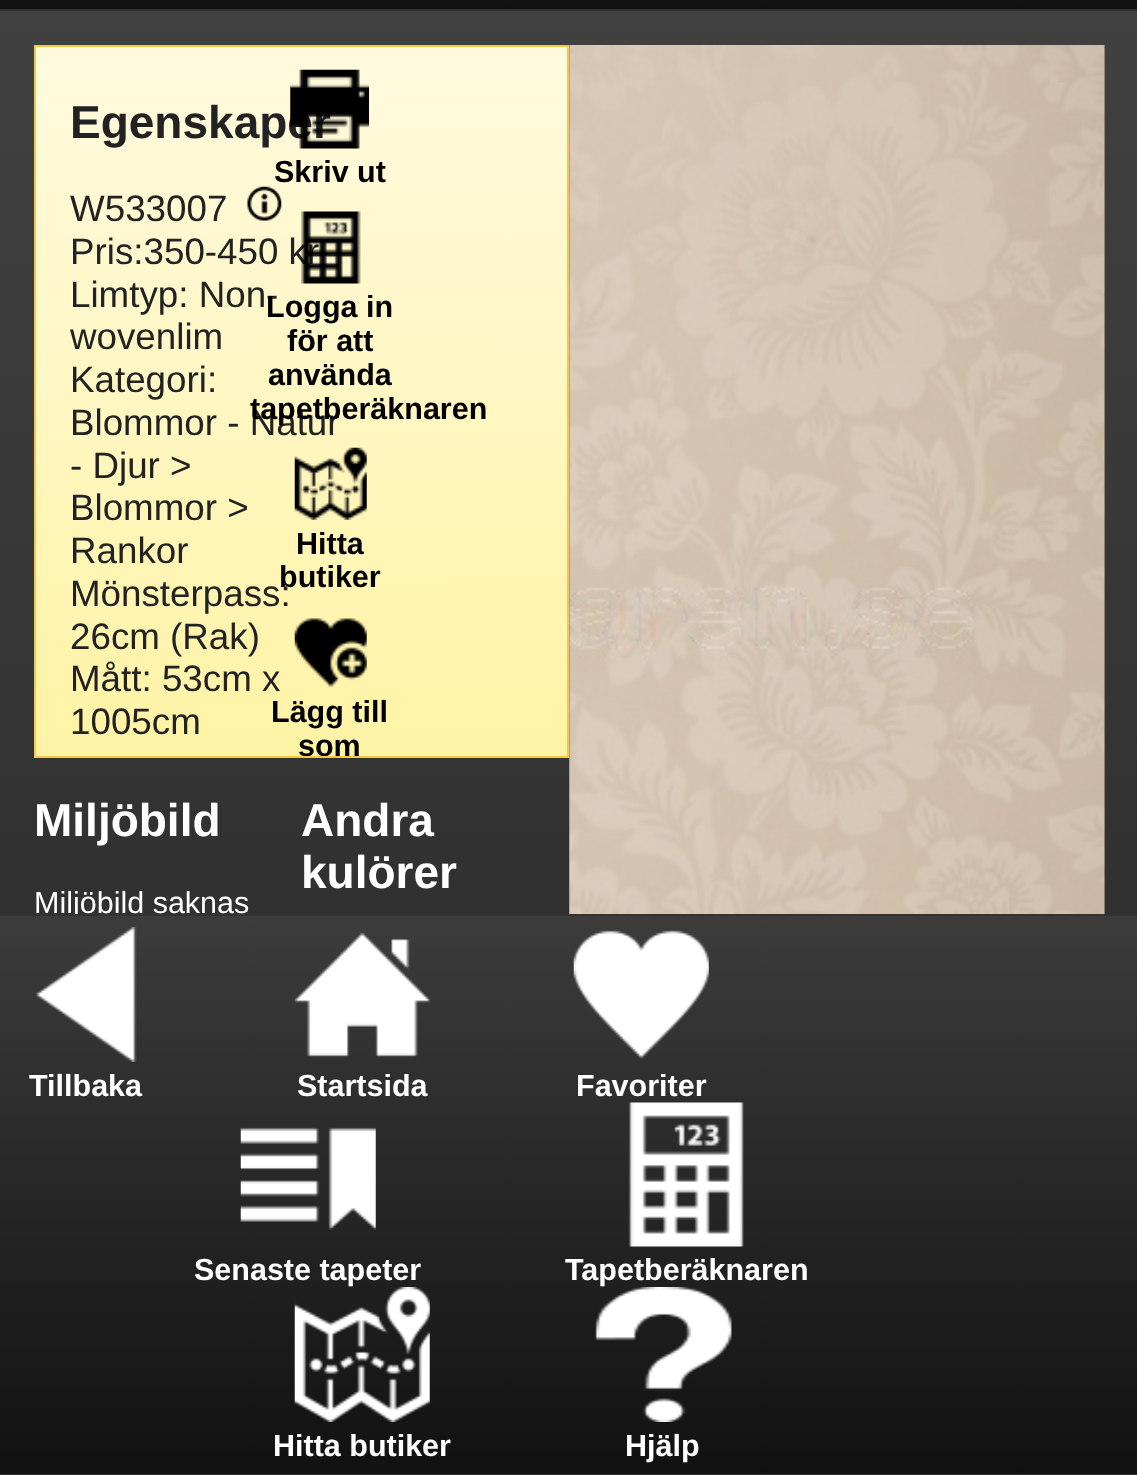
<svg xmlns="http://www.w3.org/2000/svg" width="1137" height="1475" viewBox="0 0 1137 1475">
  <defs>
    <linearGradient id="g1" gradientUnits="userSpaceOnUse" x1="569" y1="-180" x2="569" y2="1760"><stop offset="0" stop-color="rgb(68,68,68)"/><stop offset="1" stop-color="rgb(34,34,34)"/></linearGradient>
    <linearGradient id="g2" gradientUnits="userSpaceOnUse" x1="569" y1="-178" x2="569" y2="9"><stop offset="0" stop-color="rgb(60,60,60)"/><stop offset="1" stop-color="rgb(17,17,17)"/></linearGradient>
    <linearGradient id="g3" gradientUnits="userSpaceOnUse" x1="301" y1="47" x2="302" y2="756"><stop offset="0" stop-color="rgb(255,250,223)"/><stop offset="1" stop-color="rgb(255,243,165)"/></linearGradient>
    <clipPath id="clip1"><rect x="36" y="47" width="531" height="709"/></clipPath>
    <linearGradient id="g4" gradientUnits="userSpaceOnUse" x1="569" y1="916" x2="569" y2="1474"><stop offset="0" stop-color="rgb(60,60,60)"/><stop offset="1" stop-color="rgb(17,17,17)"/></linearGradient>
  </defs>
  <rect width="100%" height="100%" fill="rgb(255,255,255)"/>
  <rect x="0" y="11" width="1137" height="903" fill="url(#g1)"/>
  <rect x="0" y="0" width="1137" height="9" fill="url(#g2)"/>
  <rect x="0" y="9" width="1137" height="2" fill="rgb(51,51,51)"/>
  <rect x="36" y="47" width="531" height="709" fill="url(#g3)"/>
  <rect x="35" y="46" width="533" height="711" fill="none" stroke="rgb(247,201,66)" stroke-width="2"/>
  <text x="70" y="138" font-family="Liberation Sans" font-size="46" font-weight="bold" fill="rgb(34,34,34)">Egenskaper</text>
  <text x="70" y="221" font-family="Liberation Sans" font-size="36.75" fill="rgb(34,34,34)">W533007</text>
  <image x="247" y="186" width="35" height="35" href="pic1.png"/>
  <g font-family="Liberation Sans" font-size="36.75" fill="rgb(34,34,34)">
    <text>
      <tspan x="70" y="264">Pris:350-450 kr</tspan>
      <tspan x="70" y="307">Limtyp: Non-</tspan>
      <tspan x="70" y="349">wovenlim</tspan>
      <tspan x="70" y="392">Kategori:</tspan>
      <tspan x="70" y="435">Blommor - Natur</tspan>
      <tspan x="70" y="478">- Djur &gt;</tspan>
      <tspan x="70" y="520">Blommor &gt;</tspan>
      <tspan x="70" y="563">Rankor</tspan>
      <tspan x="70" y="606">Mönsterpass:</tspan>
      <tspan x="70" y="649">26cm (Rak)</tspan>
      <tspan x="70" y="691">Mått: 53cm x</tspan>
      <tspan x="70" y="734">1005cm</tspan>
    </text>
  </g>
  <image x="290" y="69" width="79" height="80" href="pic2.png"/>
  <text x="274" y="182" font-family="Liberation Sans" font-size="30.5" font-weight="bold" fill="rgb(0,0,0)">Skriv ut</text>
  <image x="301" y="211" width="60" height="73" href="pic3.png"/>
  <g font-family="Liberation Sans" font-size="30.5" font-weight="bold" fill="rgb(0,0,0)">
    <text x="266" y="317">Logga in</text>
    <text x="287" y="351">för att</text>
    <text x="268" y="385">använda</text>
    <text x="250" y="419">tapetberäknaren</text>
  </g>
  <image x="294" y="447" width="73" height="73" href="pic4.png"/>
  <g font-family="Liberation Sans" font-size="30.5" font-weight="bold" fill="rgb(0,0,0)">
    <text x="296" y="554">Hitta</text>
    <text x="279" y="587">butiker</text>
  </g>
  <image x="294" y="618" width="73" height="69" href="pic5.png"/>
  <text x="271" y="722" font-family="Liberation Sans" font-size="30.5" font-weight="bold" fill="rgb(0,0,0)">Lägg till</text>
  <g clip-path="url(#clip1)">
    <text x="298" y="756" font-family="Liberation Sans" font-size="30.5" font-weight="bold" fill="rgb(0,0,0)">som</text>
  </g>
  <text x="34" y="836" font-family="Liberation Sans" font-size="46" font-weight="bold" fill="rgb(255,255,255)">Miljöbild</text>
  <text x="34" y="913" font-family="Liberation Sans" font-size="30.5" fill="rgb(255,255,255)">Miljöbild saknas</text>
  <g font-family="Liberation Sans" font-size="46" font-weight="bold" fill="rgb(255,255,255)">
    <text>
      <tspan x="301" y="836">Andra</tspan>
      <tspan x="301" y="888">kulörer</tspan>
    </text>
  </g>
  <image x="569" y="45" width="536" height="869" href="pic6.png"/>
  <rect x="0" y="916" width="1137" height="558" fill="url(#g4)"/>
  <rect x="0" y="914" width="1137" height="2" fill="rgb(51,51,51)"/>
  <rect x="0" y="1474" width="1137" height="1" fill="rgb(51,51,51)"/>
  <image x="36" y="927" width="101" height="135" href="pic7.png"/>
  <text x="29" y="1096" font-family="Liberation Sans" font-size="30.5" font-weight="bold" fill="rgb(255,255,255)">Tillbaka</text>
  <image x="294" y="932" width="137" height="125" href="pic8.png"/>
  <text x="297" y="1096" font-family="Liberation Sans" font-size="30.5" font-weight="bold" fill="rgb(255,255,255)">Startsida</text>
  <image x="573" y="930" width="136" height="129" href="pic9.png"/>
  <text x="576" y="1096" font-family="Liberation Sans" font-size="30.5" font-weight="bold" fill="rgb(255,255,255)">Favoriter</text>
  <image x="240" y="1127" width="136" height="103" href="pic10.png"/>
  <text x="194" y="1280" font-family="Liberation Sans" font-size="30.5" font-weight="bold" fill="rgb(255,255,255)">Senaste tapeter</text>
  <image x="628" y="1102" width="116" height="145" href="pic11.png"/>
  <text x="565" y="1280" font-family="Liberation Sans" font-size="30.5" font-weight="bold" fill="rgb(255,255,255)">Tapetberäknaren</text>
  <image x="294" y="1287" width="136" height="135" href="pic12.png"/>
  <text x="273" y="1456" font-family="Liberation Sans" font-size="30.5" font-weight="bold" fill="rgb(255,255,255)">Hitta butiker</text>
  <image x="595" y="1287" width="137" height="135" href="pic13.png"/>
  <text x="625" y="1456" font-family="Liberation Sans" font-size="30.5" font-weight="bold" fill="rgb(255,255,255)">Hjälp</text>
</svg>
